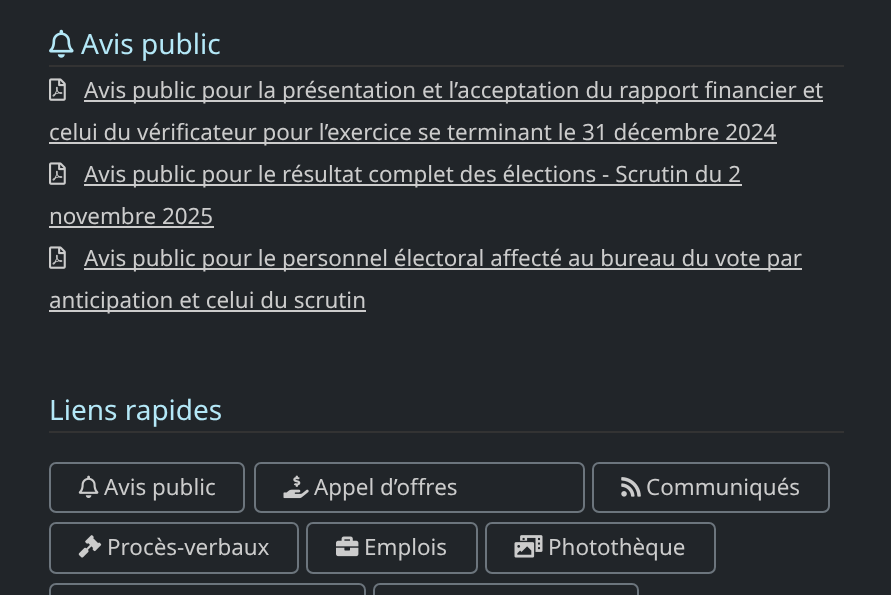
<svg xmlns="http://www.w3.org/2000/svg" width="891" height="595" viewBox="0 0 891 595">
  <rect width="100%" height="100%" fill="rgb(33,37,41)"/>
  <rect x="49" y="65" width="795" height="2" fill="rgb(51,51,51)"/>
  <image x="49" y="29" width="25" height="29" href="pic1.png"/>
  <text x="81" y="54" font-family="Noto Sans" font-size="28" fill="rgb(180,232,247)">Avis public</text>
  <image x="49" y="78" width="17" height="23" href="pic2.png"/>
  <rect x="84" y="100" width="739" height="2" fill="rgb(204,204,204)"/>
  <text x="84" y="98" font-family="Noto Sans" font-size="22.4" fill="rgb(204,204,204)">Avis public pour la présentation et l’acceptation du rapport financier et</text>
  <rect x="49" y="142" width="728" height="2" fill="rgb(204,204,204)"/>
  <text x="49" y="140" font-family="Noto Sans" font-size="22.4" fill="rgb(204,204,204)">celui du vérificateur pour l’exercice se terminant le 31 décembre 2024</text>
  <image x="49" y="162" width="17" height="23" href="pic2.png"/>
  <rect x="84" y="184" width="658" height="2" fill="rgb(204,204,204)"/>
  <g font-family="Noto Sans" font-size="22.4" fill="rgb(204,204,204)">
    <text x="84" y="182">Avis public pour le résultat complet des élections - Scrutin du 2</text>
    <text x="49" y="224">novembre 2025</text>
  </g>
  <rect x="49" y="226" width="165" height="2" fill="rgb(204,204,204)"/>
  <image x="49" y="246" width="17" height="23" href="pic2.png"/>
  <rect x="84" y="268" width="718" height="2" fill="rgb(204,204,204)"/>
  <text x="84" y="266" font-family="Noto Sans" font-size="22.4" fill="rgb(204,204,204)">Avis public pour le personnel électoral affecté au bureau du vote par</text>
  <rect x="49" y="310" width="317" height="2" fill="rgb(204,204,204)"/>
  <text x="49" y="308" font-family="Noto Sans" font-size="22.4" fill="rgb(204,204,204)">anticipation et celui du scrutin</text>
  <rect x="49" y="431" width="795" height="2" fill="rgb(51,51,51)"/>
  <text x="49" y="420" font-family="Noto Sans" font-size="28" fill="rgb(180,232,247)">Liens rapides</text>
  <rect x="50" y="463" width="194" height="49" rx="6" fill="none" stroke="rgb(108,117,125)" stroke-width="2"/>
  <image x="78" y="475" width="21" height="23" href="pic3.png"/>
  <text x="104" y="495" font-family="Noto Sans" font-size="22.4" fill="rgb(204,204,204)">Avis public</text>
  <rect x="255" y="463" width="329" height="49" rx="6" fill="none" stroke="rgb(108,117,125)" stroke-width="2"/>
  <image x="283" y="475" width="26" height="24" href="pic4.png"/>
  <text x="314" y="495" font-family="Noto Sans" font-size="22.4" fill="rgb(204,204,204)">Appel d’offres</text>
  <rect x="593" y="463" width="236" height="49" rx="6" fill="none" stroke="rgb(108,117,125)" stroke-width="2"/>
  <image x="621" y="477" width="20" height="20" href="pic5.png"/>
  <text x="646" y="495" font-family="Noto Sans" font-size="22.4" fill="rgb(204,204,204)">Communiqués</text>
  <rect x="50" y="523" width="248" height="50" rx="6" fill="none" stroke="rgb(108,117,125)" stroke-width="2"/>
  <image x="78" y="535" width="24" height="23" href="pic6.png"/>
  <text x="107" y="555" font-family="Noto Sans" font-size="22.4" fill="rgb(204,204,204)">Procès-verbaux</text>
  <rect x="307" y="523" width="170" height="50" rx="6" fill="none" stroke="rgb(108,117,125)" stroke-width="2"/>
  <image x="336" y="536" width="23" height="21" href="pic7.png"/>
  <text x="364" y="555" font-family="Noto Sans" font-size="22.4" fill="rgb(204,204,204)">Emplois</text>
  <rect x="486" y="523" width="229" height="50" rx="6" fill="none" stroke="rgb(108,117,125)" stroke-width="2"/>
  <image x="514" y="535" width="29" height="23" href="pic8.png"/>
  <text x="548" y="555" font-family="Noto Sans" font-size="22.4" fill="rgb(204,204,204)">Photothèque</text>
  <rect x="50" y="584" width="315" height="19" rx="6" fill="none" stroke="rgb(108,117,125)" stroke-width="2"/>
  <rect x="374" y="584" width="264" height="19" rx="6" fill="none" stroke="rgb(108,117,125)" stroke-width="2"/>
</svg>
